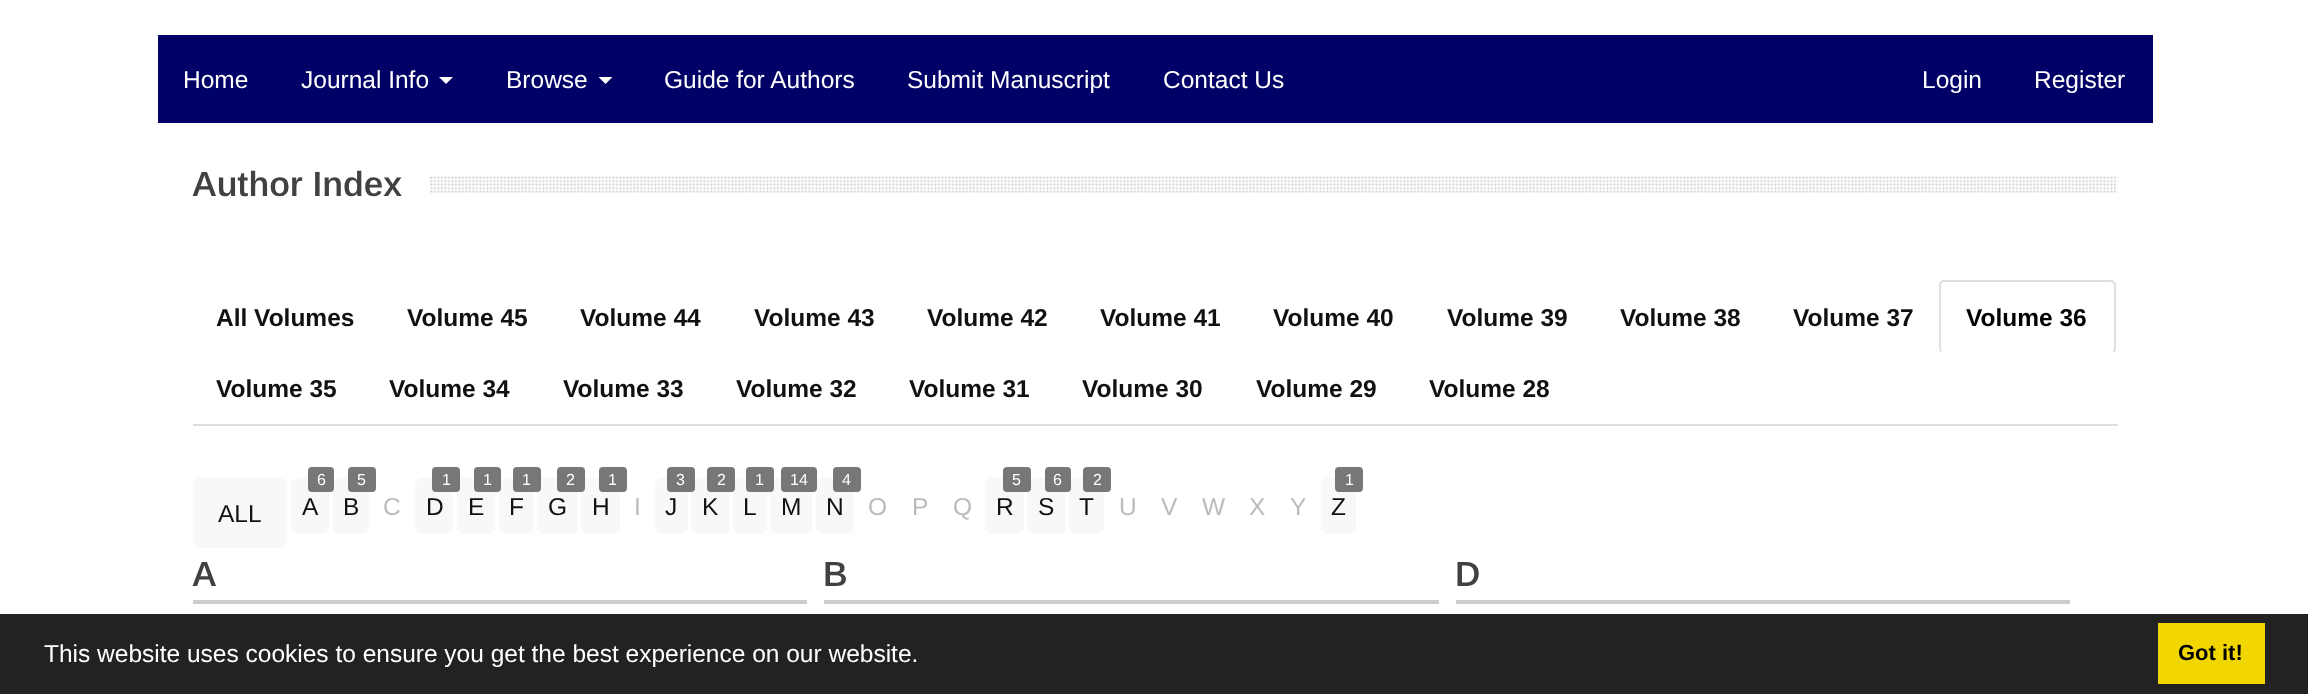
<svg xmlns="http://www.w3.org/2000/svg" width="2308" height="694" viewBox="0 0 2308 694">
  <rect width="100%" height="100%" fill="rgb(255,255,255)"/>
  <rect x="158" y="35" width="1995" height="88" fill="rgb(0,0,102)"/>
  <g font-family="Arimo" font-size="24.5" fill="rgb(255,255,255)">
    <text x="183" y="88">Home</text>
    <text x="301" y="88">Journal Info</text>
  </g>
  <path d="M439 77H453L446 84Z" fill="rgb(255,255,255)"/>
  <text x="506" y="88" font-family="Arimo" font-size="24.5" fill="rgb(255,255,255)">Browse</text>
  <path d="M598.5 77H612.5L605.5 84Z" fill="rgb(255,255,255)"/>
  <g font-family="Arimo" font-size="24.5" fill="rgb(255,255,255)">
    <text x="664" y="88">Guide for Authors</text>
    <text x="907" y="88">Submit Manuscript</text>
    <text x="1163" y="88">Contact Us</text>
    <text x="1922" y="88">Login</text>
    <text x="2034" y="88">Register</text>
  </g>
  <image x="429" y="176" width="1689" height="17" href="pic1.png"/>
  <text x="192" y="196" font-family="Arimo" font-size="35" font-weight="600" fill="rgb(65,65,65)">Author Index</text>
  <rect x="193" y="424" width="1925" height="2" fill="rgb(221,221,221)"/>
  <g font-family="Arimo" font-size="24.5" font-weight="bold" fill="rgb(17,17,17)">
    <text x="216" y="326">All Volumes</text>
    <text x="407" y="326">Volume 45</text>
    <text x="580" y="326">Volume 44</text>
    <text x="754" y="326">Volume 43</text>
    <text x="927" y="326">Volume 42</text>
    <text x="1100" y="326">Volume 41</text>
    <text x="1273" y="326">Volume 40</text>
    <text x="1447" y="326">Volume 39</text>
    <text x="1620" y="326">Volume 38</text>
    <text x="1793" y="326">Volume 37</text>
  </g>
  <path d="M1941 351.5C1940.5 350.5 1940 349.5 1940 348V285C1940 284 1940.5 283 1941 282C1942 281.5 1943 281 1944 281H2110.5C2111.5 281 2113 281.5 2113.5 282C2114.5 283 2115 284 2115 285V348C2115 349.5 2114.5 350.5 2113.5 351.5" fill="none" stroke="rgb(221,221,221)" stroke-width="1.8"/>
  <text x="1966" y="326" font-family="Arimo" font-size="24.5" font-weight="bold" fill="rgb(0,0,0)">Volume 36</text>
  <g font-family="Arimo" font-size="24.5" font-weight="bold" fill="rgb(17,17,17)">
    <text x="216" y="397">Volume 35</text>
    <text x="389" y="397">Volume 34</text>
    <text x="563" y="397">Volume 33</text>
    <text x="736" y="397">Volume 32</text>
    <text x="909" y="397">Volume 31</text>
    <text x="1082" y="397">Volume 30</text>
    <text x="1256" y="397">Volume 29</text>
    <text x="1429" y="397">Volume 28</text>
  </g>
  <rect x="193" y="478" width="94" height="70" rx="7" fill="rgb(248,248,248)"/>
  <text x="218" y="522" font-family="Arimo" font-size="24.5" fill="rgb(17,17,17)">ALL</text>
  <rect x="291" y="478" width="38" height="56" rx="7" fill="rgb(248,248,248)"/>
  <rect x="333" y="478" width="36" height="56" rx="7" fill="rgb(248,248,248)"/>
  <rect x="308" y="467" width="26" height="25" rx="4" fill="rgb(119,119,119)"/>
  <text x="317" y="485" font-family="Arimo" font-size="16" fill="rgb(255,255,255)">6</text>
  <text x="302" y="515" font-family="Arimo" font-size="24.5" fill="rgb(17,17,17)">A</text>
  <rect x="348" y="467" width="28" height="25" rx="4" fill="rgb(119,119,119)"/>
  <text x="357" y="485" font-family="Arimo" font-size="16" fill="rgb(255,255,255)">5</text>
  <text x="343" y="515" font-family="Arimo" font-size="24.5" fill="rgb(17,17,17)">B</text>
  <text x="383" y="515" font-family="Arimo" font-size="24.5" fill="rgb(187,187,187)">C</text>
  <rect x="415" y="478" width="38" height="56" rx="7" fill="rgb(248,248,248)"/>
  <rect x="457" y="478" width="38" height="56" rx="7" fill="rgb(248,248,248)"/>
  <rect x="432" y="467" width="28" height="25" rx="4" fill="rgb(119,119,119)"/>
  <text x="442" y="485" font-family="Arimo" font-size="16" fill="rgb(255,255,255)">1</text>
  <text x="426" y="515" font-family="Arimo" font-size="24.5" fill="rgb(17,17,17)">D</text>
  <rect x="499" y="478" width="35" height="56" rx="7" fill="rgb(248,248,248)"/>
  <rect x="474" y="467" width="27" height="25" rx="4" fill="rgb(119,119,119)"/>
  <text x="483" y="485" font-family="Arimo" font-size="16" fill="rgb(255,255,255)">1</text>
  <text x="468" y="515" font-family="Arimo" font-size="24.5" fill="rgb(17,17,17)">E</text>
  <rect x="537" y="478" width="41" height="56" rx="7" fill="rgb(248,248,248)"/>
  <rect x="513" y="467" width="28" height="25" rx="4" fill="rgb(119,119,119)"/>
  <text x="522" y="485" font-family="Arimo" font-size="16" fill="rgb(255,255,255)">1</text>
  <text x="509" y="515" font-family="Arimo" font-size="24.5" fill="rgb(17,17,17)">F</text>
  <rect x="581" y="478" width="39" height="56" rx="7" fill="rgb(248,248,248)"/>
  <rect x="557" y="467" width="28" height="25" rx="4" fill="rgb(119,119,119)"/>
  <text x="566" y="485" font-family="Arimo" font-size="16" fill="rgb(255,255,255)">2</text>
  <text x="548" y="515" font-family="Arimo" font-size="24.5" fill="rgb(17,17,17)">G</text>
  <rect x="599" y="467" width="28" height="25" rx="4" fill="rgb(119,119,119)"/>
  <text x="608" y="485" font-family="Arimo" font-size="16" fill="rgb(255,255,255)">1</text>
  <text x="592" y="515" font-family="Arimo" font-size="24.5" fill="rgb(17,17,17)">H</text>
  <text x="634" y="515" font-family="Arimo" font-size="24.5" fill="rgb(187,187,187)">I</text>
  <rect x="655" y="478" width="33" height="56" rx="7" fill="rgb(248,248,248)"/>
  <rect x="691" y="478" width="39" height="56" rx="7" fill="rgb(248,248,248)"/>
  <rect x="667" y="467" width="28" height="25" rx="4" fill="rgb(119,119,119)"/>
  <text x="676" y="485" font-family="Arimo" font-size="16" fill="rgb(255,255,255)">3</text>
  <text x="665" y="515" font-family="Arimo" font-size="24.5" fill="rgb(17,17,17)">J</text>
  <rect x="733" y="478" width="34" height="56" rx="7" fill="rgb(248,248,248)"/>
  <rect x="707" y="467" width="28" height="25" rx="4" fill="rgb(119,119,119)"/>
  <text x="717" y="485" font-family="Arimo" font-size="16" fill="rgb(255,255,255)">2</text>
  <text x="702" y="515" font-family="Arimo" font-size="24.5" fill="rgb(17,17,17)">K</text>
  <rect x="770" y="478" width="42" height="56" rx="7" fill="rgb(248,248,248)"/>
  <rect x="746" y="467" width="28" height="25" rx="4" fill="rgb(119,119,119)"/>
  <text x="755" y="485" font-family="Arimo" font-size="16" fill="rgb(255,255,255)">1</text>
  <text x="743" y="515" font-family="Arimo" font-size="24.5" fill="rgb(17,17,17)">L</text>
  <rect x="816" y="478" width="38" height="56" rx="7" fill="rgb(248,248,248)"/>
  <rect x="781" y="467" width="36" height="25" rx="4" fill="rgb(119,119,119)"/>
  <text x="790" y="485" font-family="Arimo" font-size="16" fill="rgb(255,255,255)">14</text>
  <text x="781" y="515" font-family="Arimo" font-size="24.5" fill="rgb(17,17,17)">M</text>
  <rect x="833" y="467" width="28" height="25" rx="4" fill="rgb(119,119,119)"/>
  <text x="842" y="485" font-family="Arimo" font-size="16" fill="rgb(255,255,255)">4</text>
  <text x="826" y="515" font-family="Arimo" font-size="24.5" fill="rgb(17,17,17)">N</text>
  <g font-family="Arimo" font-size="24.5" fill="rgb(187,187,187)">
    <text x="868" y="515">O</text>
    <text x="912" y="515">P</text>
    <text x="953" y="515">Q</text>
  </g>
  <rect x="985" y="478" width="39" height="56" rx="7" fill="rgb(248,248,248)"/>
  <rect x="1027" y="478" width="39" height="56" rx="7" fill="rgb(248,248,248)"/>
  <rect x="1003" y="467" width="28" height="25" rx="4" fill="rgb(119,119,119)"/>
  <text x="1012" y="485" font-family="Arimo" font-size="16" fill="rgb(255,255,255)">5</text>
  <text x="996" y="515" font-family="Arimo" font-size="24.5" fill="rgb(17,17,17)">R</text>
  <rect x="1069" y="478" width="35" height="56" rx="7" fill="rgb(248,248,248)"/>
  <rect x="1045" y="467" width="26" height="25" rx="4" fill="rgb(119,119,119)"/>
  <text x="1053" y="485" font-family="Arimo" font-size="16" fill="rgb(255,255,255)">6</text>
  <text x="1038" y="515" font-family="Arimo" font-size="24.5" fill="rgb(17,17,17)">S</text>
  <rect x="1083" y="467" width="28" height="25" rx="4" fill="rgb(119,119,119)"/>
  <text x="1093" y="485" font-family="Arimo" font-size="16" fill="rgb(255,255,255)">2</text>
  <text x="1079" y="515" font-family="Arimo" font-size="24.5" fill="rgb(17,17,17)">T</text>
  <g font-family="Arimo" font-size="24.5" fill="rgb(187,187,187)">
    <text x="1119" y="515">U</text>
    <text x="1161" y="515">V</text>
    <text x="1202" y="515">W</text>
    <text x="1249" y="515">X</text>
    <text x="1290" y="515">Y</text>
  </g>
  <rect x="1321" y="478" width="35" height="56" rx="7" fill="rgb(248,248,248)"/>
  <rect x="1335" y="467" width="28" height="25" rx="4" fill="rgb(119,119,119)"/>
  <text x="1345" y="485" font-family="Arimo" font-size="16" fill="rgb(255,255,255)">1</text>
  <text x="1331" y="515" font-family="Arimo" font-size="24.5" fill="rgb(17,17,17)">Z</text>
  <rect x="193" y="600" width="614" height="4" fill="rgb(204,204,204)"/>
  <text x="192" y="586" font-family="Arimo" font-size="35" font-weight="600" letter-spacing="-1" fill="rgb(65,65,65)">A</text>
  <rect x="824" y="600" width="615" height="4" fill="rgb(204,204,204)"/>
  <text x="823" y="586" font-family="Arimo" font-size="35" font-weight="600" letter-spacing="-1" fill="rgb(65,65,65)">B</text>
  <rect x="1456" y="600" width="614" height="4" fill="rgb(204,204,204)"/>
  <text x="1455" y="586" font-family="Arimo" font-size="35" font-weight="600" letter-spacing="-1" fill="rgb(65,65,65)">D</text>
  <rect x="0" y="614" width="2308" height="80" fill="rgb(34,34,34)"/>
  <text x="44" y="662" font-family="Liberation Sans" font-size="24.5" fill="rgb(255,255,255)">This website uses cookies to ensure you get the best experience on our website.</text>
  <rect x="2158" y="623" width="107" height="61" fill="rgb(241,214,0)"/>
  <text x="2178" y="660" font-family="Liberation Sans" font-size="22" font-weight="bold" fill="rgb(0,0,0)">Got it!</text>
</svg>
